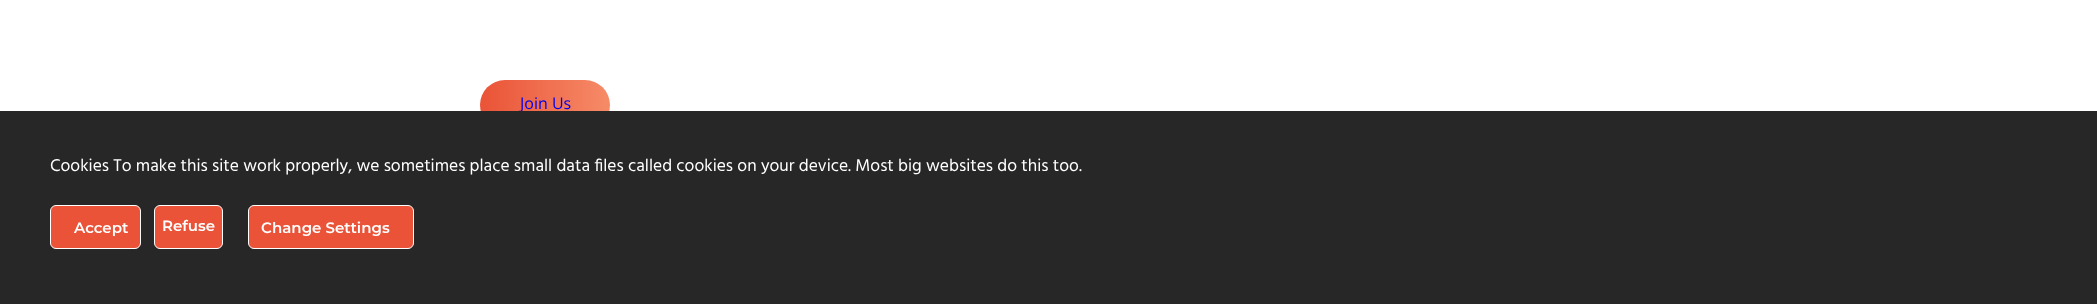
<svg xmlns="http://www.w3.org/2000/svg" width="2097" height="304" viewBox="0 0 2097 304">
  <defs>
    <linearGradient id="g1" gradientUnits="userSpaceOnUse" x1="480" y1="105" x2="610" y2="105"><stop offset="0" stop-color="rgb(234,83,55)"/><stop offset="1" stop-color="rgb(246,139,104)"/></linearGradient>
  </defs>
  <rect width="100%" height="100%" fill="rgb(255,255,255)"/>
  <rect x="480" y="80" width="130" height="50" rx="25" fill="url(#g1)"/>
  <text x="520" y="109" font-family="Open Sans" font-size="16" fill="rgb(0,0,238)">Join Us</text>
  <rect x="0" y="111" width="2097" height="193" fill="rgb(39,39,39)"/>
  <text x="50" y="171" font-family="Hind" font-size="17.5" fill="rgb(255,255,255)">Cookies To make this site work properly, we sometimes place small data files called cookies on your device. Most big websites do this too.</text>
  <rect x="50.5" y="205.5" width="90" height="43" rx="5.5" fill="rgb(234,83,55)" stroke="rgb(255,255,255)"/>
  <text x="74" y="233" font-family="Montserrat" font-size="15" font-weight="600" fill="rgb(255,255,255)">Accept</text>
  <rect x="154.5" y="205.5" width="68" height="43" rx="5.5" fill="rgb(234,83,55)" stroke="rgb(255,255,255)"/>
  <text x="162" y="231" font-family="Montserrat" font-size="15" font-weight="600" fill="rgb(255,255,255)">Refuse</text>
  <rect x="248.5" y="205.5" width="165" height="43" rx="5.5" fill="rgb(234,83,55)" stroke="rgb(255,255,255)"/>
  <text x="261" y="233" font-family="Montserrat" font-size="15" font-weight="600" fill="rgb(255,255,255)">Change Settings</text>
</svg>
